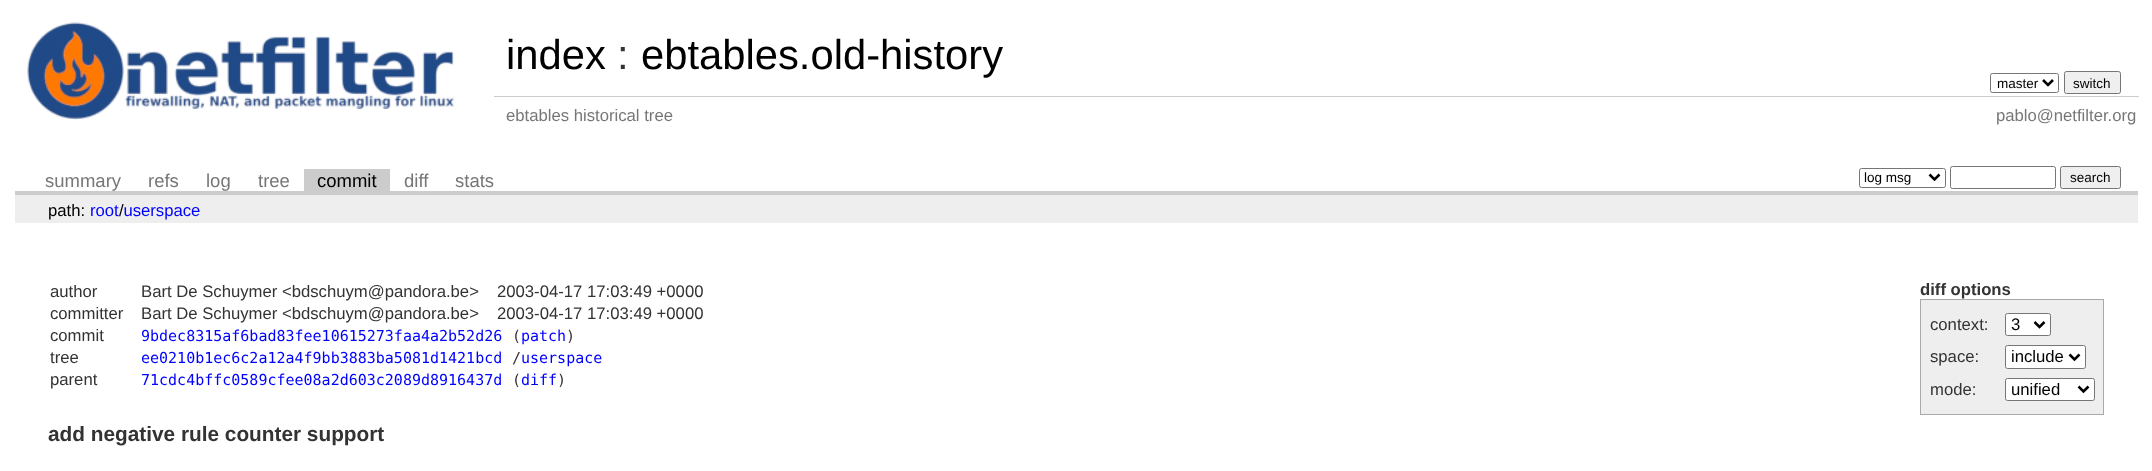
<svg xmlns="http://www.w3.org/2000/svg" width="2152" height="471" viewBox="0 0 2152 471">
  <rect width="100%" height="100%" fill="rgb(255,255,255)"/>
  <image x="27" y="22" width="427" height="98" href="pic1.png"/>
  <text x="506" y="69" font-family="Liberation Sans" font-size="41.75" fill="rgb(0,0,0)">index</text>
  <text x="617" y="69" font-family="Liberation Sans" font-size="41.75" fill="rgb(51,51,51)">:</text>
  <text x="641" y="69" font-family="Liberation Sans" font-size="41.75" fill="rgb(0,0,0)">ebtables.old-history</text>
  <rect x="1990.5" y="73.5" width="68" height="19" rx="2" fill="none" stroke="rgb(118,118,118)"/>
  <path d="M2043 80L2048 85L2053 80" fill="none" stroke="rgb(0,0,0)" stroke-width="2.5"/>
  <text x="1997" y="88" font-family="Liberation Sans" font-size="13.5" fill="rgb(0,0,0)">master</text>
  <rect x="2064.5" y="71.5" width="56" height="22" rx="2" fill="rgb(239,239,239)" stroke="rgb(118,118,118)"/>
  <text x="2073" y="88" font-family="Liberation Sans" font-size="13.5" fill="rgb(0,0,0)">switch</text>
  <text x="506" y="121" font-family="Liberation Sans" font-size="16.7" fill="rgb(119,119,119)">ebtables historical tree</text>
  <rect x="494" y="96" width="1645" height="1" fill="rgb(204,204,204)"/>
  <text x="1996" y="121" font-family="Liberation Sans" font-size="16.7" fill="rgb(119,119,119)">pablo@netfilter.org</text>
  <rect x="15" y="191" width="2123" height="4" fill="rgb(204,204,204)"/>
  <g font-family="Liberation Sans" font-size="18.5" fill="rgb(119,119,119)">
    <text x="45" y="187">summary</text>
    <text x="148" y="187">refs</text>
    <text x="206" y="187">log</text>
    <text x="258" y="187">tree</text>
  </g>
  <rect x="304" y="169" width="86" height="22" fill="rgb(204,204,204)"/>
  <text x="317" y="187" font-family="Liberation Sans" font-size="18.5" fill="rgb(0,0,0)">commit</text>
  <g font-family="Liberation Sans" font-size="18.5" fill="rgb(119,119,119)">
    <text x="404" y="187">diff</text>
    <text x="455" y="187">stats</text>
  </g>
  <rect x="1859.5" y="168.5" width="86" height="19" rx="2" fill="none" stroke="rgb(118,118,118)"/>
  <path d="M1929.5 174.5L1934.5 179.5L1939.5 174.5" fill="none" stroke="rgb(0,0,0)" stroke-width="2.5"/>
  <text x="1864" y="182" font-family="Liberation Sans" font-size="13.5" fill="rgb(0,0,0)">log msg</text>
  <rect x="1950.5" y="166.5" width="105" height="22" rx="2" fill="none" stroke="rgb(118,118,118)"/>
  <rect x="2060.5" y="166.5" width="60" height="22" rx="2" fill="rgb(239,239,239)" stroke="rgb(118,118,118)"/>
  <text x="2070" y="182" font-family="Liberation Sans" font-size="13.5" fill="rgb(0,0,0)">search</text>
  <rect x="15" y="195" width="2123" height="28" fill="rgb(238,238,238)"/>
  <text x="48" y="216" font-family="Liberation Sans" font-size="16.7" fill="rgb(0,0,0)">path:</text>
  <text x="90" y="216" font-family="Liberation Sans" font-size="16.7" fill="rgb(0,0,255)">root userspace</text>
  <text x="119" y="216" font-family="Liberation Sans" font-size="16.7" fill="rgb(0,0,0)">/</text>
  <g font-family="Liberation Sans" font-size="16.7" fill="rgb(51,51,51)">
    <text x="50" y="297">author</text>
    <text x="141" y="297">Bart De Schuymer &lt;bdschuym@pandora.be&gt;</text>
    <text x="497" y="297">2003-04-17 17:03:49 +0000</text>
    <text x="50" y="319">committer</text>
    <text x="141" y="319">Bart De Schuymer &lt;bdschuym@pandora.be&gt;</text>
    <text x="497" y="319">2003-04-17 17:03:49 +0000</text>
    <text x="50" y="341">commit</text>
  </g>
  <text x="141" y="341" font-family="DejaVu Sans Mono" font-size="15" fill="rgb(0,0,255)">9bdec8315af6bad83fee10615273faa4a2b52d26</text>
  <text x="512" y="341" font-family="DejaVu Sans Mono" font-size="15" fill="rgb(51,51,51)">(</text>
  <text x="521" y="341" font-family="DejaVu Sans Mono" font-size="15" fill="rgb(0,0,255)">patch</text>
  <text x="566" y="341" font-family="DejaVu Sans Mono" font-size="15" fill="rgb(51,51,51)">)</text>
  <text x="50" y="363" font-family="Liberation Sans" font-size="16.7" fill="rgb(51,51,51)">tree</text>
  <text x="141" y="363" font-family="DejaVu Sans Mono" font-size="15" fill="rgb(0,0,255)">ee0210b1ec6c2a12a4f9bb3883ba5081d1421bcd</text>
  <text x="512" y="363" font-family="DejaVu Sans Mono" font-size="15" fill="rgb(51,51,51)">/</text>
  <text x="521" y="363" font-family="DejaVu Sans Mono" font-size="15" fill="rgb(0,0,255)">userspace</text>
  <text x="50" y="385" font-family="Liberation Sans" font-size="16.7" fill="rgb(51,51,51)">parent</text>
  <text x="141" y="385" font-family="DejaVu Sans Mono" font-size="15" fill="rgb(0,0,255)">71cdc4bffc0589cfee08a2d603c2089d8916437d</text>
  <text x="512" y="385" font-family="DejaVu Sans Mono" font-size="15" fill="rgb(51,51,51)">(</text>
  <text x="521" y="385" font-family="DejaVu Sans Mono" font-size="15" fill="rgb(0,0,255)">diff</text>
  <text x="557" y="385" font-family="DejaVu Sans Mono" font-size="15" fill="rgb(51,51,51)">)</text>
  <text x="1920" y="295" font-family="Liberation Sans" font-size="16.7" font-weight="bold" fill="rgb(51,51,51)">diff options</text>
  <rect x="1921" y="300" width="182" height="114" fill="rgb(238,238,238)"/>
  <rect x="1920" y="299" width="184" height="1" fill="rgb(170,170,170)"/>
  <rect x="2103" y="299" width="1" height="116" fill="rgb(170,170,170)"/>
  <rect x="1920" y="414" width="184" height="1" fill="rgb(170,170,170)"/>
  <rect x="1920" y="299" width="1" height="116" fill="rgb(170,170,170)"/>
  <text x="1930" y="330" font-family="Liberation Sans" font-size="16.7" fill="rgb(51,51,51)">context:</text>
  <rect x="2005.5" y="313.5" width="45" height="22" rx="2" fill="rgb(255,255,255)" stroke="rgb(118,118,118)"/>
  <path d="M2034.5 322L2039.5 327L2044.5 322" fill="none" stroke="rgb(0,0,0)" stroke-width="2.5"/>
  <text x="2011" y="330" font-family="Liberation Sans" font-size="16.7" fill="rgb(0,0,0)">3</text>
  <text x="1930" y="362" font-family="Liberation Sans" font-size="16.7" fill="rgb(51,51,51)">space:</text>
  <rect x="2005.5" y="345.5" width="80" height="23" rx="2" fill="rgb(255,255,255)" stroke="rgb(118,118,118)"/>
  <path d="M2069.5 354.5L2074.5 359.5L2079.5 354.5" fill="none" stroke="rgb(0,0,0)" stroke-width="2.5"/>
  <text x="2011" y="362" font-family="Liberation Sans" font-size="16.7" fill="rgb(0,0,0)">include</text>
  <text x="1930" y="395" font-family="Liberation Sans" font-size="16.7" fill="rgb(51,51,51)">mode:</text>
  <rect x="2005.5" y="378.5" width="89" height="22" rx="2" fill="rgb(255,255,255)" stroke="rgb(118,118,118)"/>
  <path d="M2078.5 386.5L2083.5 391.5L2088.5 386.5" fill="none" stroke="rgb(0,0,0)" stroke-width="2.5"/>
  <text x="2011" y="395" font-family="Liberation Sans" font-size="16.7" fill="rgb(0,0,0)">unified</text>
  <text x="48" y="441" font-family="Liberation Sans" font-size="20.8" font-weight="bold" fill="rgb(51,51,51)">add negative rule counter support</text>
</svg>
